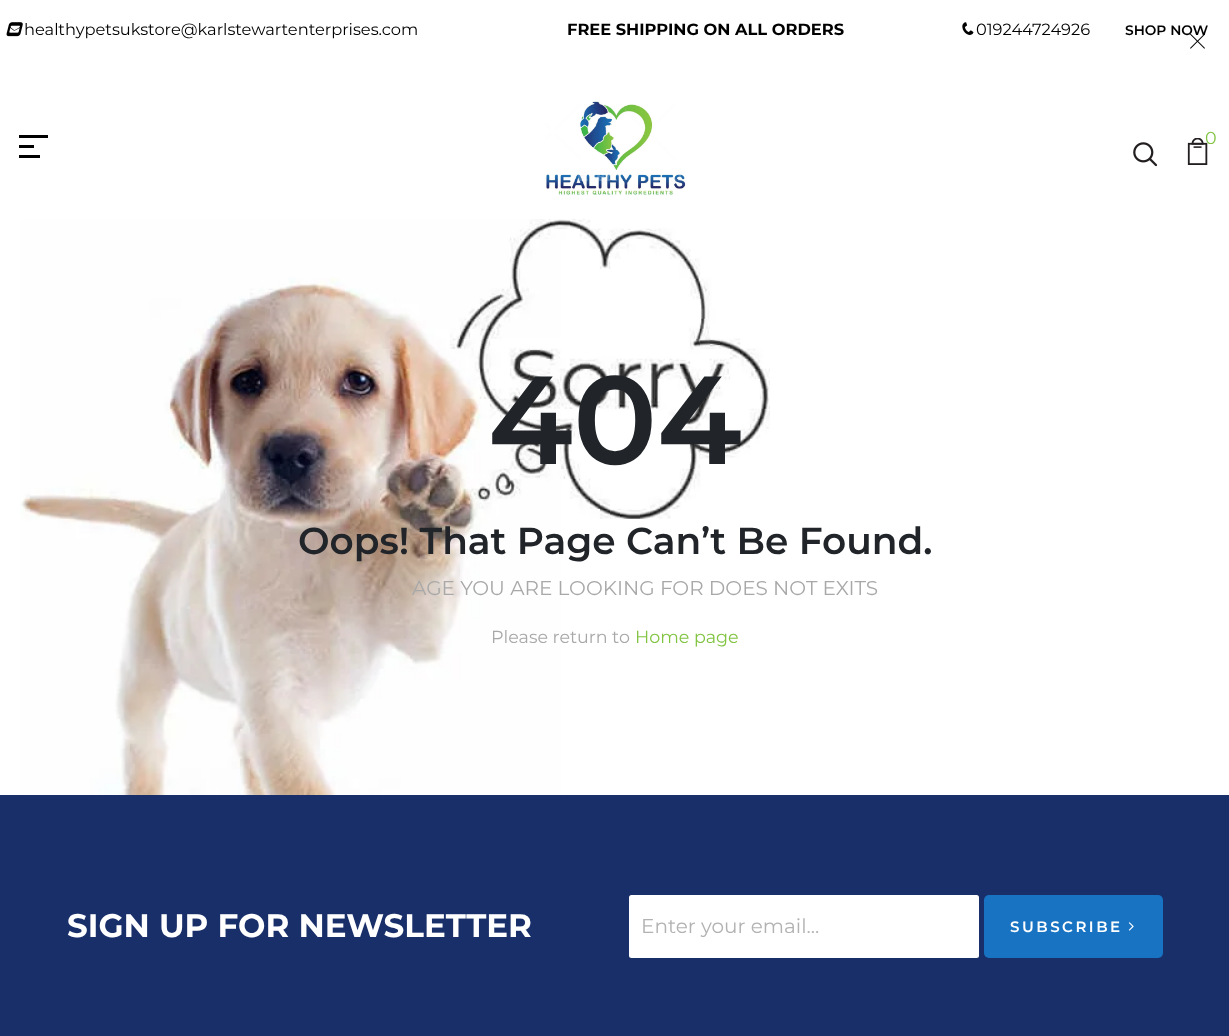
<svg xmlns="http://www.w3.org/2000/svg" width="1229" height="1036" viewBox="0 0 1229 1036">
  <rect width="100%" height="100%" fill="rgb(255,255,255)"/>
  <image x="6" y="22" width="17" height="15" href="pic1.png"/>
  <text x="24" y="35" font-family="Montserrat" font-size="16.25" fill="rgb(0,0,0)">healthypetsukstore@karlstewartenterprises.com</text>
  <text x="567" y="35" font-family="Montserrat" font-size="16.25" font-weight="bold" fill="rgb(0,0,0)">FREE SHIPPING ON ALL ORDERS</text>
  <image x="962" y="22" width="12" height="13" href="pic2.png"/>
  <text x="976" y="35" font-family="Montserrat" font-size="16.25" fill="rgb(0,0,0)">019244724926</text>
  <text x="1125" y="35" font-family="Montserrat" font-size="13.75" font-weight="600" fill="rgb(0,0,0)">SHOP NOW</text>
  <image x="1190" y="34" width="15" height="15" href="pic3.png"/>
  <rect x="19" y="135" width="29" height="3" fill="rgb(0,0,0)"/>
  <rect x="19" y="145" width="15" height="3" fill="rgb(0,0,0)"/>
  <rect x="19" y="155" width="21" height="3" fill="rgb(0,0,0)"/>
  <image x="545" y="101" width="141" height="95" href="pic4.png"/>
  <image x="1187" y="138" width="21" height="27" href="pic5.png"/>
  <text x="1205" y="144" font-family="Montserrat" font-size="17.5" fill="rgb(130,196,66)">0</text>
  <image x="1133" y="142" width="25" height="25" href="pic6.png"/>
  <image x="20" y="219" width="750" height="576" href="pic7.png"/>
  <text x="488" y="464" font-family="Montserrat" font-size="125" font-weight="600" fill="rgb(33,37,41)">404</text>
  <text x="298" y="554" font-family="Montserrat" font-size="37.5" font-weight="600" fill="rgb(33,37,41)">Oops! That Page Can’t Be Found.</text>
  <text x="412" y="595" font-family="Montserrat" font-size="20" fill="rgb(168,168,168)">AGE YOU ARE LOOKING FOR DOES NOT EXITS</text>
  <text x="491" y="643" font-family="Montserrat" font-size="17.5" fill="rgb(168,168,168)">Please return to</text>
  <text x="635" y="643" font-family="Montserrat" font-size="17.5" fill="rgb(130,196,66)">Home page</text>
  <rect x="0" y="795" width="1229" height="241" fill="rgb(25,47,105)"/>
  <text x="67" y="937" font-family="Montserrat" font-size="32.5" font-weight="bold" fill="rgb(255,255,255)">SIGN UP FOR NEWSLETTER</text>
  <rect x="629" y="895" width="350" height="63" rx="2.5" fill="rgb(255,255,255)"/>
  <text x="641" y="933" font-family="Montserrat" font-size="20" fill="rgb(178,178,178)">Enter your email...</text>
  <rect x="984" y="895" width="179" height="63" rx="5" fill="rgb(24,115,194)"/>
  <text x="1010" y="932" font-family="Montserrat" font-size="15" font-weight="600" letter-spacing="2.5" fill="rgb(255,255,255)">SUBSCRIBE</text>
  <image x="1128" y="922" width="6" height="9" href="pic8.png"/>
</svg>
